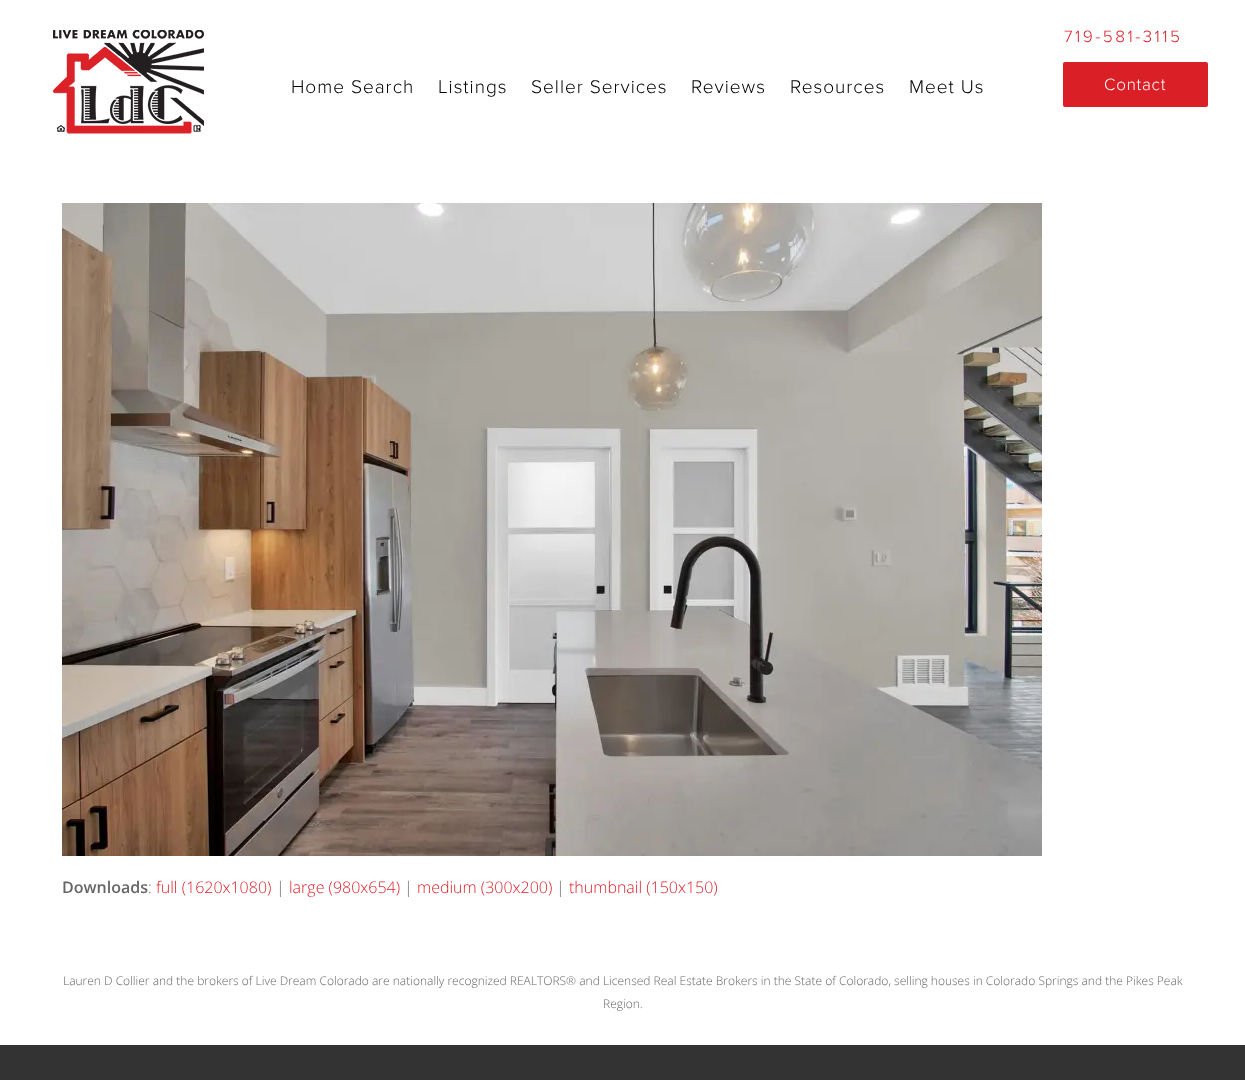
<svg xmlns="http://www.w3.org/2000/svg" width="1245" height="1080" viewBox="0 0 1245 1080">
  <rect width="100%" height="100%" fill="rgb(255,255,255)"/>
  <text x="1064" y="42" font-family="Proxima Nova" font-size="17" font-weight="300" letter-spacing="2.5" fill="rgb(218,31,39)">719-581-3115</text>
  <image x="53" y="30" width="151" height="104" href="pic1.png"/>
  <g font-family="Proxima Nova" font-size="19" font-weight="300" letter-spacing="1" fill="rgb(0,0,0)">
    <text x="291" y="93">Home Search</text>
    <text x="438" y="93">Listings</text>
    <text x="531" y="93">Seller Services</text>
    <text x="691" y="93">Reviews</text>
    <text x="790" y="93">Resources</text>
    <text x="909" y="93">Meet Us</text>
  </g>
  <rect x="1063" y="62" width="145" height="45" rx="2" fill="rgb(218,31,39)"/>
  <text x="1104" y="90" font-family="Proxima Nova" font-size="17" font-weight="300" letter-spacing="0.75" fill="rgb(255,255,255)">Contact</text>
  <image x="62" y="203" width="980" height="653" href="pic2.png"/>
  <text x="62" y="893" font-family="Open Sans" font-size="16" font-weight="600" fill="rgb(102,102,102)">Downloads</text>
  <text x="148" y="893" font-family="Open Sans" font-size="16" font-weight="300" fill="rgb(102,102,102)">:</text>
  <text x="156" y="893" font-family="Open Sans" font-size="16" font-weight="300" fill="rgb(218,31,39)">full (1620x1080)</text>
  <text x="276" y="893" font-family="Open Sans" font-size="16" font-weight="300" fill="rgb(102,102,102)">|</text>
  <text x="289" y="893" font-family="Open Sans" font-size="16" font-weight="300" fill="rgb(218,31,39)">large (980x654)</text>
  <text x="404" y="893" font-family="Open Sans" font-size="16" font-weight="300" fill="rgb(102,102,102)">|</text>
  <text x="417" y="893" font-family="Open Sans" font-size="16" font-weight="300" fill="rgb(218,31,39)">medium (300x200)</text>
  <text x="556" y="893" font-family="Open Sans" font-size="16" font-weight="300" fill="rgb(102,102,102)">|</text>
  <text x="569" y="893" font-family="Open Sans" font-size="16" font-weight="300" fill="rgb(218,31,39)">thumbnail (150x150)</text>
  <g font-family="Open Sans" font-size="12" font-weight="300" fill="rgb(102,102,102)">
    <text x="63" y="985">Lauren D Collier and the brokers of Live Dream Colorado are nationally recognized REALTORS® and Licensed Real Estate Brokers in the State of Colorado, selling houses in Colorado Springs and the Pikes Peak</text>
    <text x="603" y="1008">Region.</text>
  </g>
  <rect x="0" y="1045" width="1245" height="35" fill="rgb(51,51,51)"/>
</svg>
